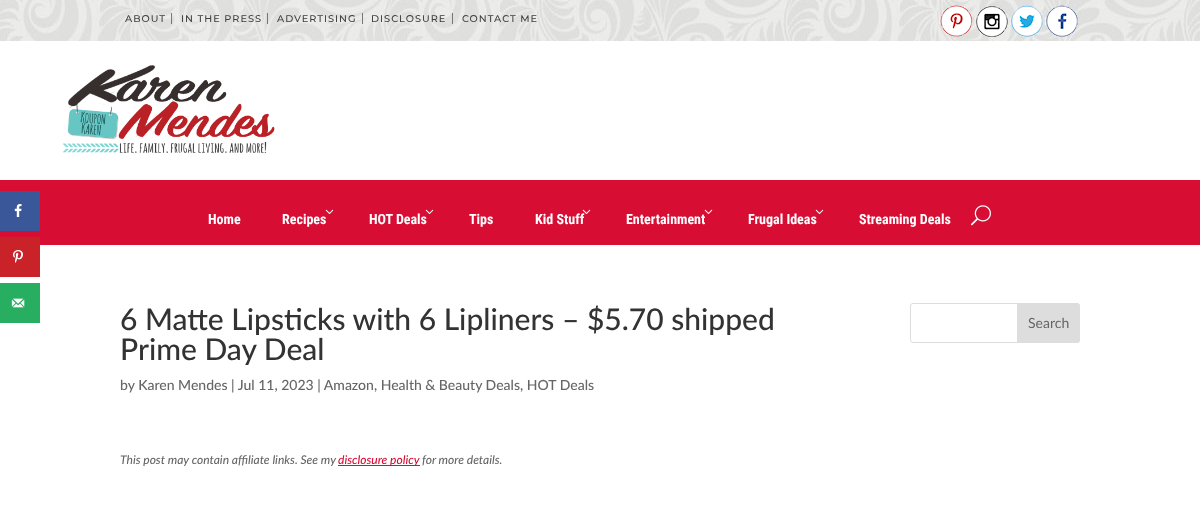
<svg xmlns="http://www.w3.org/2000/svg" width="1200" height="520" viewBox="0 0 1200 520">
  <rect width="100%" height="100%" fill="rgb(255,255,255)"/>
  <rect x="0" y="180" width="1200" height="65" fill="rgb(215,13,52)"/>
  <rect x="0" y="191" width="40" height="40" fill="rgb(58,87,154)"/>
  <image x="14" y="204" width="8" height="13" href="pic1.png"/>
  <rect x="0" y="237" width="40" height="40" fill="rgb(201,34,40)"/>
  <image x="13" y="250" width="10" height="13" href="pic2.png"/>
  <rect x="0" y="283" width="40" height="40" fill="rgb(39,174,96)"/>
  <image x="11" y="298" width="14" height="10" href="pic3.png"/>
  <image x="0" y="0" width="1200" height="41" href="pic4.png"/>
  <text x="125" y="22" font-family="Montserrat" font-size="9.75" font-weight="500" letter-spacing="1" fill="rgb(64,64,64)">ABOUT</text>
  <rect x="171" y="13" width="1" height="11" fill="rgb(119,119,119)"/>
  <text x="181" y="22" font-family="Montserrat" font-size="9.75" font-weight="500" letter-spacing="1" fill="rgb(64,64,64)">IN THE PRESS</text>
  <rect x="267" y="13" width="1" height="11" fill="rgb(119,119,119)"/>
  <text x="277" y="22" font-family="Montserrat" font-size="9.75" font-weight="500" letter-spacing="1" fill="rgb(64,64,64)">ADVERTISING</text>
  <rect x="362" y="13" width="1" height="11" fill="rgb(119,119,119)"/>
  <text x="371" y="22" font-family="Montserrat" font-size="9.75" font-weight="500" letter-spacing="1" fill="rgb(64,64,64)">DISCLOSURE</text>
  <rect x="452" y="13" width="1" height="11" fill="rgb(119,119,119)"/>
  <text x="462" y="22" font-family="Montserrat" font-size="9.75" font-weight="500" letter-spacing="1" fill="rgb(64,64,64)">CONTACT ME</text>
  <image x="939" y="5" width="34" height="32" href="pic5.png"/>
  <image x="975" y="4" width="33" height="33" href="pic6.png"/>
  <image x="1010" y="5" width="33" height="32" href="pic7.png"/>
  <image x="1045" y="5" width="33" height="32" href="pic8.png"/>
  <image x="62" y="65" width="216" height="88" href="pic9.png"/>
  <g font-family="Roboto Condensed" font-size="14" font-weight="bold" fill="rgb(255,255,255)">
    <text x="208" y="224">Home</text>
    <text x="282" y="224">Recipes</text>
  </g>
  <image x="325" y="209" width="9" height="5" href="pic10.png"/>
  <text x="369" y="224" font-family="Roboto Condensed" font-size="14" font-weight="bold" fill="rgb(255,255,255)">HOT Deals</text>
  <image x="425" y="209" width="9" height="5" href="pic10.png"/>
  <g font-family="Roboto Condensed" font-size="14" font-weight="bold" fill="rgb(255,255,255)">
    <text x="469" y="224">Tips</text>
    <text x="535" y="224">Kid Stuff</text>
  </g>
  <image x="582" y="209" width="9" height="5" href="pic11.png"/>
  <text x="626" y="224" font-family="Roboto Condensed" font-size="14" font-weight="bold" fill="rgb(255,255,255)">Entertainment</text>
  <image x="704" y="209" width="9" height="5" href="pic10.png"/>
  <text x="748" y="224" font-family="Roboto Condensed" font-size="14" font-weight="bold" fill="rgb(255,255,255)">Frugal Ideas</text>
  <image x="815" y="209" width="9" height="5" href="pic10.png"/>
  <text x="859" y="224" font-family="Roboto Condensed" font-size="14" font-weight="bold" fill="rgb(255,255,255)">Streaming Deals</text>
  <image x="971" y="205" width="20" height="21" href="pic12.png"/>
  <g font-family="Lato" font-size="30" font-weight="500" fill="rgb(51,51,51)">
    <text>
      <tspan x="120" y="330">6 Matte Lipsticks with 6 Lipliners – $5.70 shipped</tspan>
      <tspan x="120" y="360">Prime Day Deal</tspan>
    </text>
  </g>
  <text x="120" y="390" font-family="Lato" font-size="14" font-weight="500" fill="rgb(102,102,102)">by Karen Mendes | Jul 11, 2023 | Amazon, Health &amp; Beauty Deals, HOT Deals</text>
  <text x="120" y="464" font-family="Lato" font-size="12" font-weight="500" font-style="italic" fill="rgb(102,102,102)">This post may contain affiliate links. See my</text>
  <rect x="338" y="465" width="82" height="1" fill="rgb(215,13,51)"/>
  <text x="338" y="464" font-family="Lato" font-size="12" font-weight="500" font-style="italic" fill="rgb(215,13,51)">disclosure policy</text>
  <text x="422" y="464" font-family="Lato" font-size="12" font-weight="500" font-style="italic" fill="rgb(102,102,102)">for more details.</text>
  <rect x="329" y="518" width="1" height="2" fill="rgb(249,255,255)"/>
  <rect x="910.5" y="303.5" width="169" height="39" rx="2.5" fill="none" stroke="rgb(221,221,221)"/>
  <path d="M1017.5 303.5H1077C1078.5 303.5 1079.5 304.5 1079.5 306V340C1079.5 341.5 1078.5 342.5 1077 342.5H1017.5Z" fill="rgb(221,221,221)" stroke="rgb(221,221,221)"/>
  <text x="1028" y="328" font-family="Lato" font-size="14" fill="rgb(102,102,102)">Search</text>
</svg>
